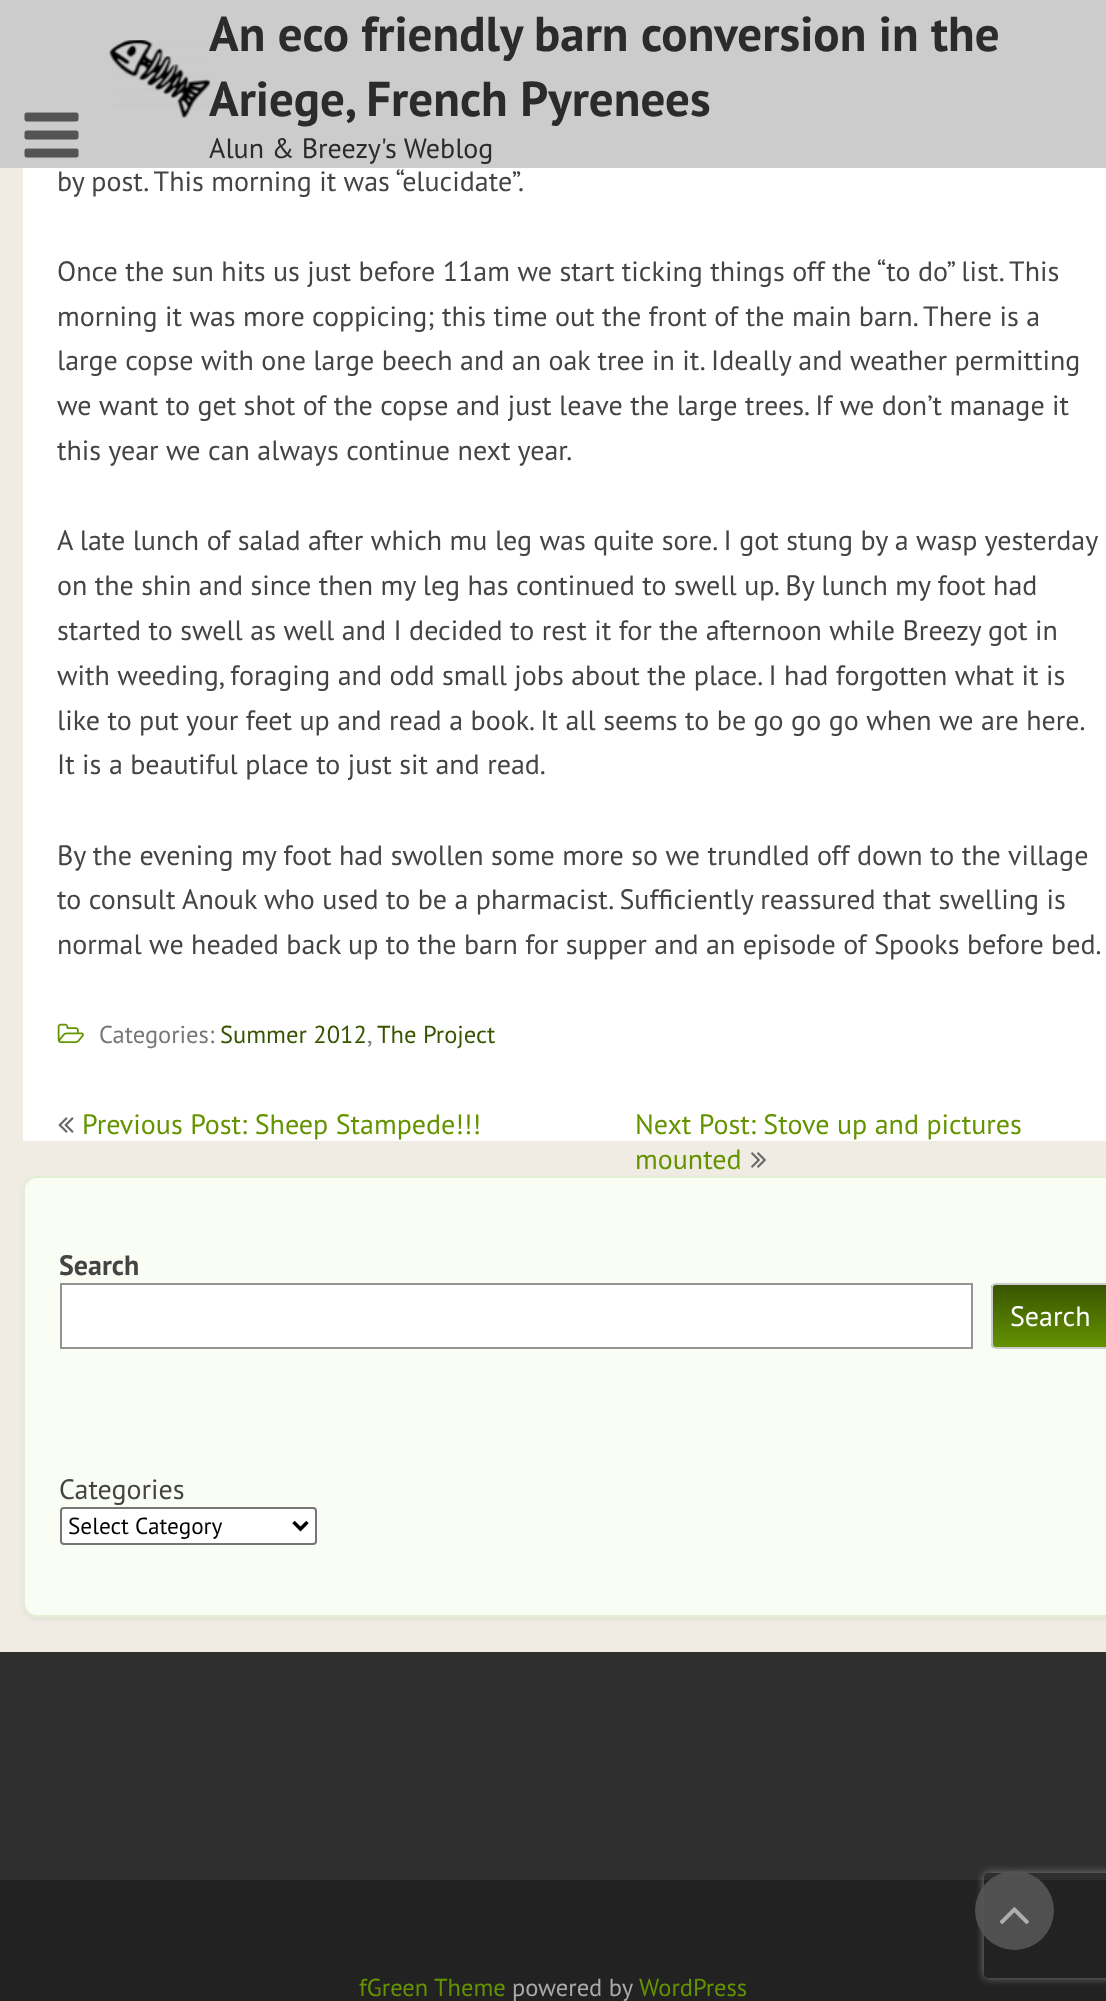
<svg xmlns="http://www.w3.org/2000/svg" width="1106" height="2001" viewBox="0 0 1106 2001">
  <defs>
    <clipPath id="clip1"><rect x="991" y="1283" width="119" height="66" rx="5"/></clipPath>
    <linearGradient id="g1" gradientUnits="userSpaceOnUse" x1="1050" y1="1285" x2="1050" y2="1348"><stop offset="0" stop-color="rgb(57,84,1)"/><stop offset="1" stop-color="rgb(100,147,0)"/></linearGradient>
    <clipPath id="clip2"><path d="M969 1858H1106V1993H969ZM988 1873H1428C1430 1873 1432 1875 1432 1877V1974C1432 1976 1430 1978 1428 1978H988C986 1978 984 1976 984 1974V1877C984 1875 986 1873 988 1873Z" clip-rule="evenodd"/></clipPath>
  </defs>
  <rect width="100%" height="100%" fill="rgb(240,236,227)"/>
  <rect x="0" y="0" width="1106" height="168" fill="rgb(204,204,204)"/>
  <image x="24" y="112" width="55" height="46" href="pic1.png"/>
  <image x="109" y="40" width="101" height="78" href="pic2.png"/>
  <g font-family="PT Sans" font-size="49" font-weight="bold" fill="rgb(43,43,43)">
    <text>
      <tspan x="209" y="51">An eco friendly barn conversion in the</tspan>
      <tspan x="209" y="116">Ariege, French Pyrenees</tspan>
    </text>
  </g>
  <text x="209" y="158" font-family="PT Sans" font-size="28" fill="rgb(43,43,43)">Alun &amp; Breezy's Weblog</text>
  <rect x="23" y="168" width="1083" height="973" fill="rgb(255,255,255)"/>
  <g font-family="PT Sans" font-size="28" fill="rgb(68,68,68)">
    <text x="57" y="191">by post. This morning it was “elucidate”.</text>
    <text>
      <tspan x="57" y="281">Once the sun hits us just before 11am we start ticking things off the “to do” list. This</tspan>
      <tspan x="57" y="326">morning it was more coppicing; this time out the front of the main barn. There is a</tspan>
      <tspan x="57" y="370">large copse with one large beech and an oak tree in it. Ideally and weather permitting</tspan>
      <tspan x="57" y="415">we want to get shot of the copse and just leave the large trees. If we don’t manage it</tspan>
      <tspan x="57" y="460">this year we can always continue next year.</tspan>
    </text>
    <text>
      <tspan x="57" y="550">A late lunch of salad after which mu leg was quite sore. I got stung by a wasp yesterday</tspan>
      <tspan x="57" y="595">on the shin and since then my leg has continued to swell up. By lunch my foot had</tspan>
      <tspan x="57" y="640">started to swell as well and I decided to rest it for the afternoon while Breezy got in</tspan>
      <tspan x="57" y="685">with weeding, foraging and odd small jobs about the place. I had forgotten what it is</tspan>
      <tspan x="57" y="730">like to put your feet up and read a book. It all seems to be go go go when we are here.</tspan>
      <tspan x="57" y="774">It is a beautiful place to just sit and read.</tspan>
    </text>
    <text>
      <tspan x="57" y="865">By the evening my foot had swollen some more so we trundled off down to the village</tspan>
      <tspan x="57" y="909">to consult Anouk who used to be a pharmacist. Sufficiently reassured that swelling is</tspan>
      <tspan x="57" y="954">normal we headed back up to the barn for supper and an episode of Spooks before bed.</tspan>
    </text>
  </g>
  <image x="57" y="1023" width="27" height="20" href="pic3.png"/>
  <text x="99" y="1043" font-family="PT Sans" font-size="24.5" fill="rgb(119,119,119)">Categories:</text>
  <text x="220" y="1043" font-family="PT Sans" font-size="24.5" fill="rgb(57,84,1)">Summer 2012</text>
  <text x="367" y="1043" font-family="PT Sans" font-size="24.5" fill="rgb(119,119,119)">,</text>
  <text x="377" y="1043" font-family="PT Sans" font-size="24.5" fill="rgb(57,84,1)">The Project</text>
  <image x="58" y="1117" width="16" height="16" href="pic4.png"/>
  <g font-family="PT Sans" font-size="28" fill="rgb(100,147,0)">
    <text x="82" y="1134">Previous Post: Sheep Stampede!!!</text>
    <text>
      <tspan x="635" y="1134">Next Post: Stove up and pictures</tspan>
      <tspan x="635" y="1169">mounted</tspan>
    </text>
  </g>
  <image x="751" y="1152" width="15" height="16" href="pic5.png"/>
  <rect x="23" y="1178" width="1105" height="441" rx="14" fill="rgba(0,0,0,0.05)" filter="blur(2.5px)"/>
  <path d="M37 1176H1106V1617H37C29.5 1617 23 1610.5 23 1603V1190C23 1182.5 29.5 1176 37 1176Z" fill="rgb(249,253,244)"/>
  <rect x="24" y="1177" width="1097" height="439" rx="13" fill="none" stroke="rgb(226,239,212)" stroke-width="2"/>
  <text x="59" y="1275" font-family="PT Sans" font-size="28" font-weight="bold" fill="rgb(68,68,68)">Search</text>
  <rect x="61" y="1284" width="911" height="64" fill="rgb(255,255,255)" stroke="rgb(148,148,148)" stroke-width="2"/>
  <g clip-path="url(#clip1)">
    <rect x="991" y="1285" width="115" height="63" fill="url(#g1)"/>
  </g>
  <rect x="992" y="1284" width="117" height="64" rx="4" fill="none" stroke="rgb(204,204,204)" stroke-width="2"/>
  <text x="1010" y="1326" font-family="PT Sans" font-size="28" fill="rgb(255,255,255)">Search</text>
  <text x="59" y="1499" font-family="PT Sans" font-size="28" fill="rgb(68,68,68)">Categories</text>
  <rect x="61" y="1508" width="255" height="36" rx="3" fill="rgb(255,255,255)" stroke="rgb(118,118,118)" stroke-width="2"/>
  <path d="M293.5 1522L300.5 1529L307.5 1522" fill="none" stroke="rgb(0,0,0)" stroke-width="3.5"/>
  <text x="68" y="1534" font-family="PT Sans" font-size="23.25" fill="rgb(0,0,0)">Select Category</text>
  <rect x="0" y="1652" width="1106" height="228" fill="rgb(47,47,47)"/>
  <rect x="0" y="1880" width="1106" height="121" fill="rgb(34,34,34)"/>
  <g clip-path="url(#clip2)">
    <rect x="984" y="1873" width="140" height="105" rx="4" fill="rgb(128,128,128)" filter="blur(4.5px)"/>
  </g>
  <circle cx="1014.5" cy="1910.5" r="39.5" fill="rgba(85,85,85,0.9)"/>
  <image x="999" y="1907" width="30" height="18" href="pic6.png"/>
  <text x="359" y="1996" font-family="PT Sans" font-size="24.5" fill="rgb(100,147,0)">fGreen Theme</text>
  <text x="512" y="1996" font-family="PT Sans" font-size="24.5" fill="rgb(170,170,170)">powered by</text>
  <text x="639" y="1996" font-family="PT Sans" font-size="24.5" fill="rgb(100,147,0)">WordPress</text>
</svg>
